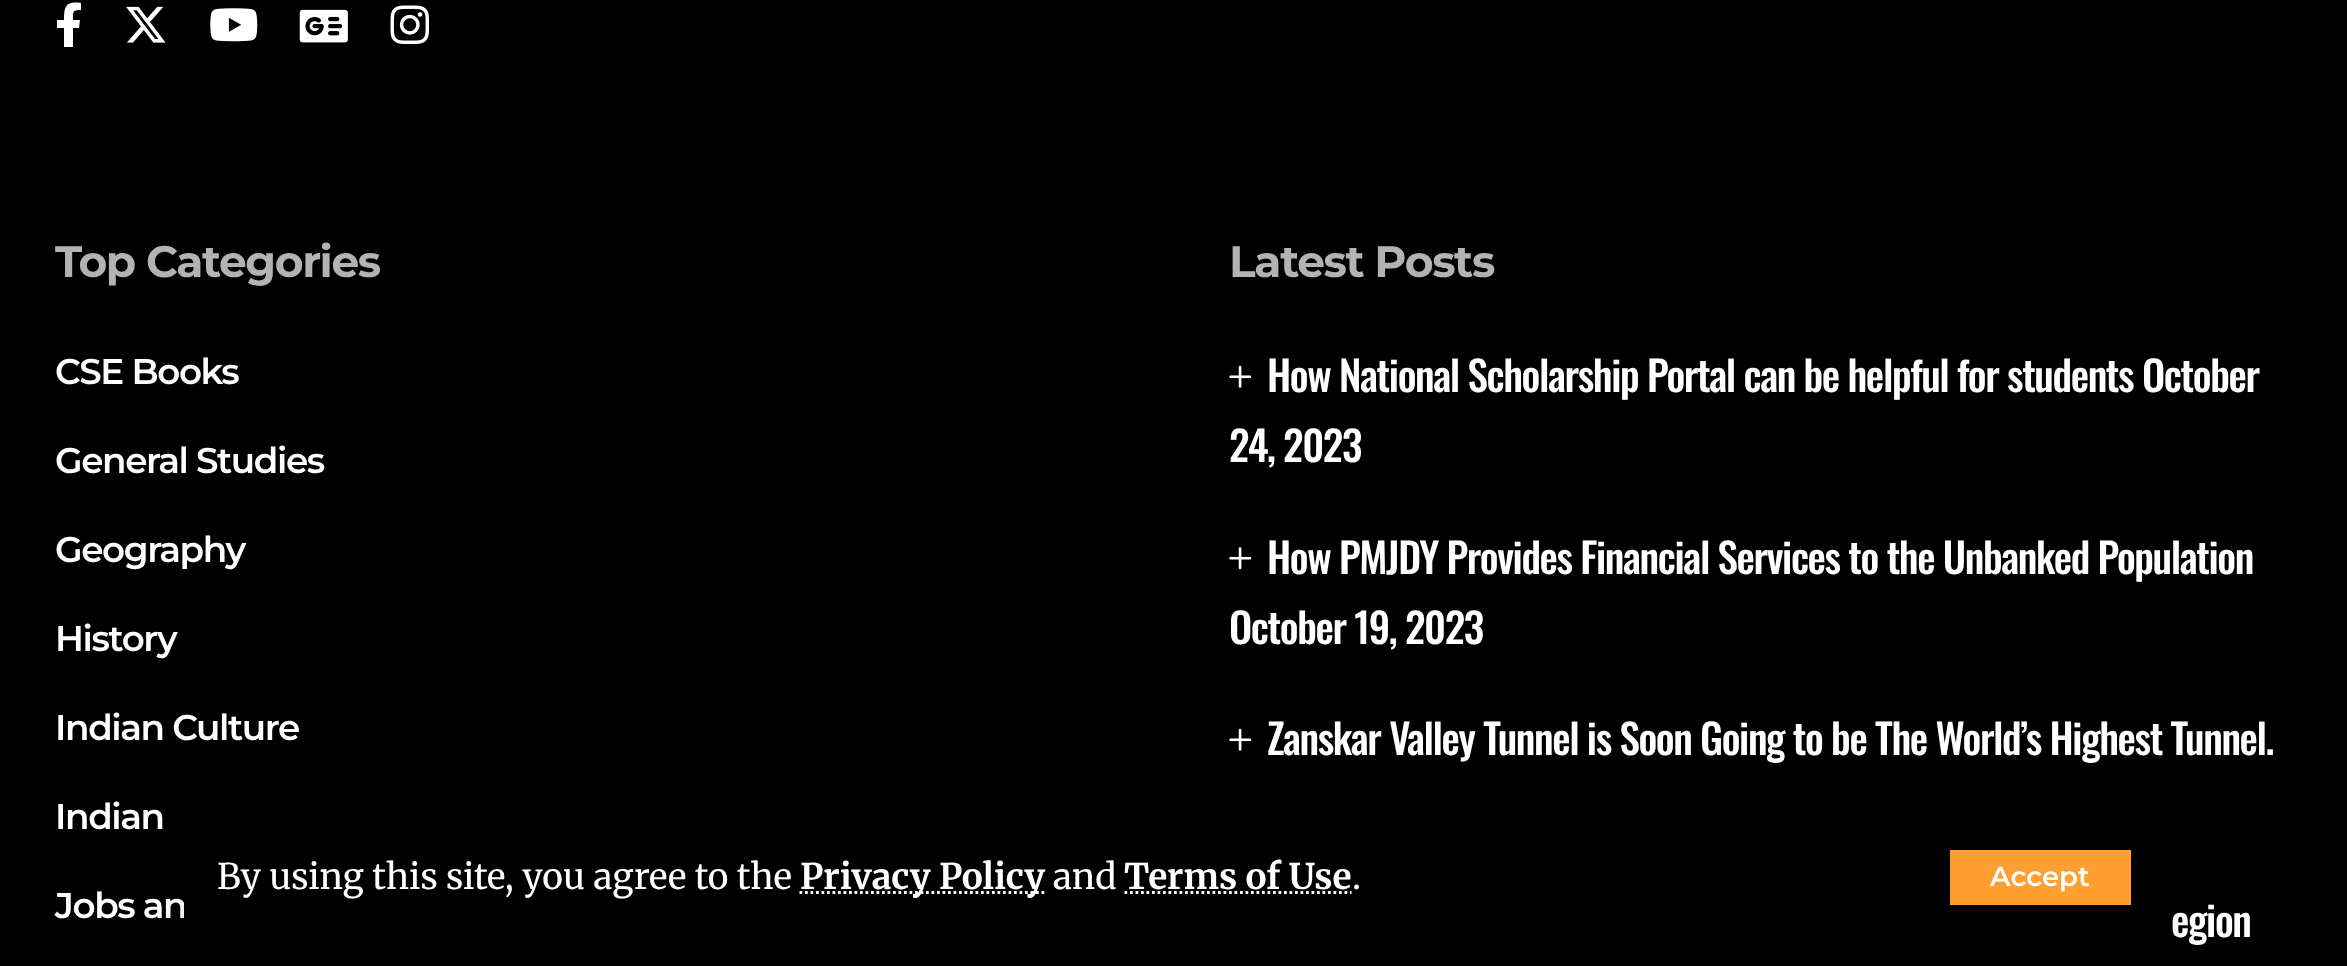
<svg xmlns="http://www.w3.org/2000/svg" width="2347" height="966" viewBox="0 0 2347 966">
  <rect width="100%" height="100%" fill="rgb(0,0,0)"/>
  <path d="M79 28L80 20H73C73 12 72 10 81 10V3C66 1 64 6 64 20H57V28H64V47H73V28Z" fill="rgb(255,255,255)"/>
  <image x="126" y="6" width="40" height="37" href="pic1.png"/>
  <image x="210" y="8" width="48" height="34" href="pic2.png"/>
  <image x="299" y="9" width="49" height="34" href="pic3.png"/>
  <image x="390" y="5" width="39" height="39" href="pic4.png"/>
  <text x="55" y="277" font-family="Montserrat" font-size="44" font-weight="bold" letter-spacing="-1.38" fill="rgb(179,179,179)">Top Categories</text>
  <g font-family="Montserrat" font-size="35.75" font-weight="600" letter-spacing="-1.38" fill="rgb(255,255,255)">
    <text x="55" y="384">CSE Books</text>
    <text x="55" y="473">General Studies</text>
    <text x="55" y="562">Geography</text>
    <text x="55" y="651">History</text>
    <text x="55" y="740">Indian Culture</text>
    <text x="55" y="829">Indian</text>
    <text x="55" y="918">Jobs an</text>
  </g>
  <text x="1229" y="277" font-family="Montserrat" font-size="44" font-weight="bold" letter-spacing="-1.38" fill="rgb(179,179,179)">Latest Posts</text>
  <image x="1229" y="365" width="23" height="23" href="pic5.png"/>
  <g font-family="Oswald" font-size="41.25" font-weight="500" letter-spacing="-1.38" fill="rgb(255,255,255)">
    <text x="1267" y="392">How National Scholarship Portal can be helpful for students</text>
    <text x="2142" y="392">October</text>
    <text x="1229" y="462">24, 2023</text>
  </g>
  <image x="1229" y="547" width="23" height="23" href="pic6.png"/>
  <g font-family="Oswald" font-size="41.25" font-weight="500" letter-spacing="-1.38" fill="rgb(255,255,255)">
    <text x="1267" y="574">How PMJDY Provides Financial Services to the Unbanked Population</text>
    <text x="1229" y="644">October 19, 2023</text>
  </g>
  <image x="1229" y="728" width="23" height="23" href="pic5.png"/>
  <g font-family="Oswald" font-size="41.25" font-weight="500" letter-spacing="-1.38" fill="rgb(255,255,255)">
    <text x="1267" y="755">Zanskar Valley Tunnel is Soon Going to be The World’s Highest Tunnel.</text>
    <text x="2171" y="937">egion</text>
  </g>
  <rect x="184" y="822" width="1980" height="127" fill="rgba(0,0,0,0.12)" filter="blur(16.5px)"/>
  <rect x="184" y="902" width="1" height="16" fill="rgb(0,0,0)"/>
  <text x="217" y="889" font-family="Merriweather" font-size="35.25" fill="rgb(255,255,255)">By using this site, you agree to the</text>
  <path d="M799.5 892.5H1044.5" fill="none" stroke="rgb(255,255,255)" stroke-width="2.8" stroke-dasharray="2.75 2.75"/>
  <text x="800" y="889" font-family="Merriweather" font-size="35.25" font-weight="bold" fill="rgb(255,255,255)">Privacy Policy</text>
  <text x="1053" y="889" font-family="Merriweather" font-size="35.25" fill="rgb(255,255,255)">and</text>
  <text x="1124" y="889" font-family="Merriweather" font-size="35.25" font-weight="bold" fill="rgb(255,255,255)">Terms of Use</text>
  <path d="M1124.5 892.5H1351.5" fill="none" stroke="rgb(255,255,255)" stroke-width="2.8" stroke-dasharray="2.75 2.75"/>
  <text x="1352" y="889" font-family="Merriweather" font-size="35.25" fill="rgb(255,255,255)">.</text>
  <rect x="1950" y="850" width="181" height="55" fill="rgb(255,159,49)"/>
  <text x="1990" y="886" font-family="Montserrat" font-size="27.5" font-weight="600" fill="rgb(255,255,255)">Accept</text>
</svg>
